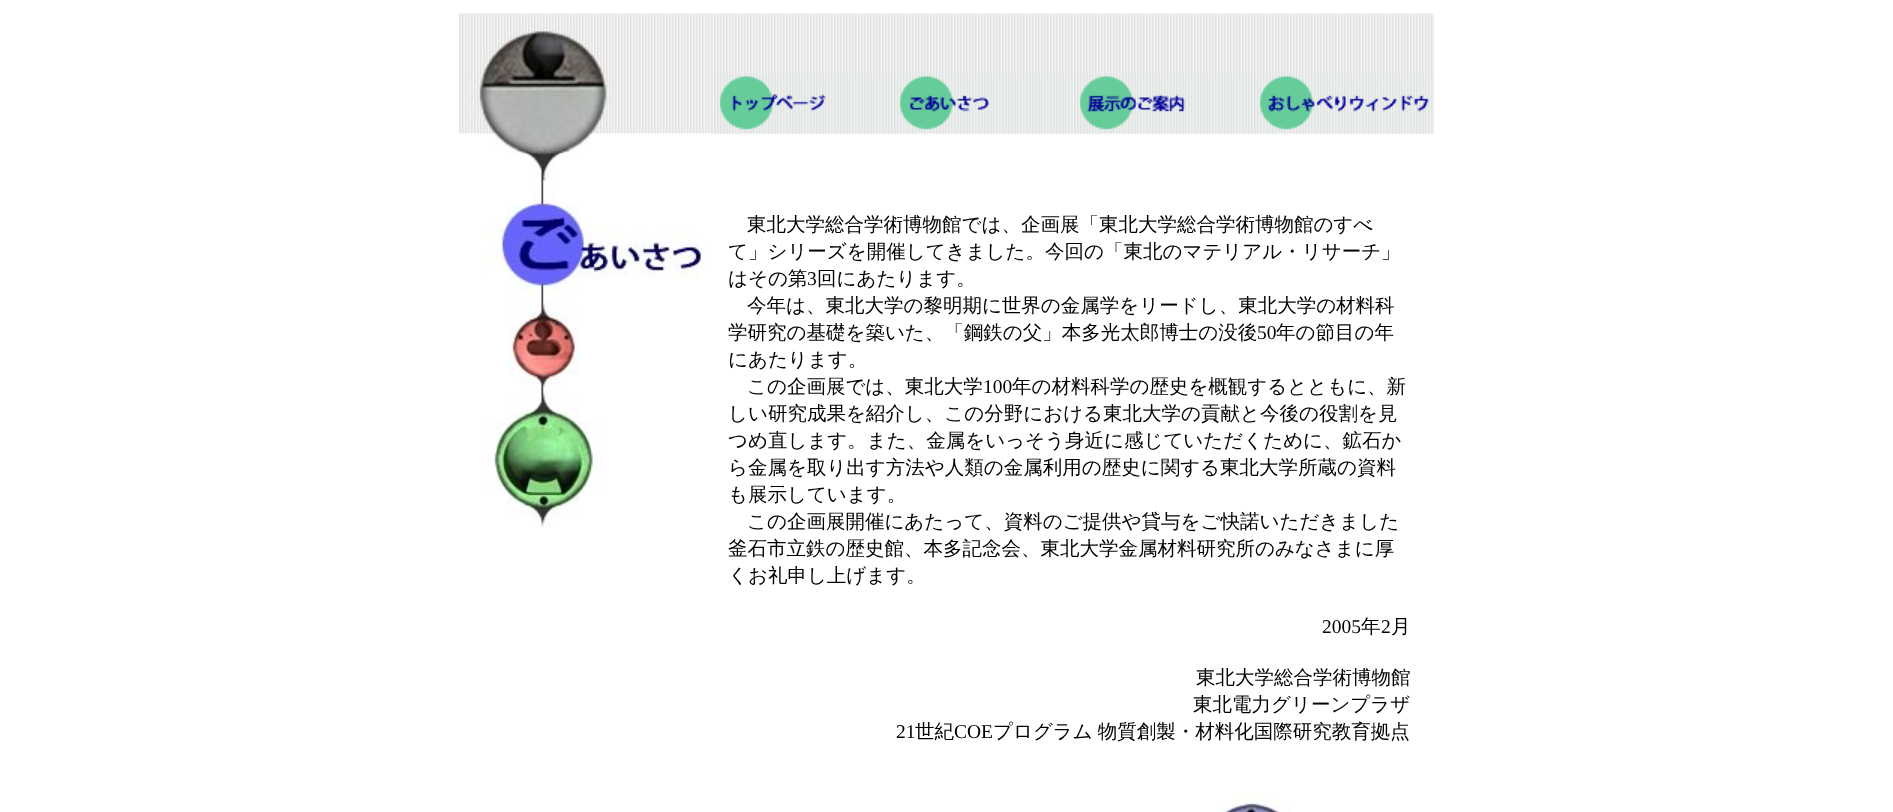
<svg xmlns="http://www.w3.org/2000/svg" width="1893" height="812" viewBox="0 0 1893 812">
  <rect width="100%" height="100%" fill="rgb(255,255,255)"/>
  <image x="459" y="13" width="246" height="515" href="pic1.png"/>
  <image x="705" y="13" width="729" height="121" href="pic2.png"/>
  <image x="714" y="73" width="180" height="61" href="pic3.png"/>
  <image x="894" y="73" width="180" height="61" href="pic4.png"/>
  <image x="1074" y="73" width="180" height="61" href="pic5.png"/>
  <image x="1254" y="73" width="180" height="61" href="pic6.png"/>
  <g font-family="WenQuanYi Zen Hei" font-size="19.5" font-weight="500" fill="rgb(0,0,0)">
    <text x="747" y="231">東北大学総合学術博物館では、企画展「東北大学総合学術博物館のすべ</text>
    <text>
      <tspan x="728" y="258">て」シリーズを開催してきました。今回の「東北のマテリアル・リサーチ」</tspan>
      <tspan x="728" y="285">はその第</tspan>
    </text>
  </g>
  <text x="807" y="285" font-family="Liberation Serif" font-size="19.5" fill="rgb(0,0,0)">3</text>
  <g font-family="WenQuanYi Zen Hei" font-size="19.5" font-weight="500" fill="rgb(0,0,0)">
    <text x="817" y="285">回にあたります。</text>
    <text x="747" y="312">今年は、東北大学の黎明期に世界の金属学をリードし、東北大学の材料科</text>
    <text x="728" y="339">学研究の基礎を築いた、「鋼鉄の父」本多光太郎博士の没後</text>
  </g>
  <text x="1257" y="339" font-family="Liberation Serif" font-size="19.5" fill="rgb(0,0,0)">50</text>
  <g font-family="WenQuanYi Zen Hei" font-size="19.5" font-weight="500" fill="rgb(0,0,0)">
    <text x="1276" y="339">年の節目の年</text>
    <text x="728" y="366">にあたります。</text>
    <text x="747" y="393">この企画展では、東北大学</text>
  </g>
  <text x="983" y="393" font-family="Liberation Serif" font-size="19.5" fill="rgb(0,0,0)">100</text>
  <g font-family="WenQuanYi Zen Hei" font-size="19.5" font-weight="500" fill="rgb(0,0,0)">
    <text x="1012" y="393">年の材料科学の歴史を概観するとともに、新</text>
    <text>
      <tspan x="728" y="420">しい研究成果を紹介し、この分野における東北大学の貢献と今後の役割を見</tspan>
      <tspan x="728" y="447">つめ直します。また、金属をいっそう身近に感じていただくために、鉱石か</tspan>
      <tspan x="728" y="474">ら金属を取り出す方法や人類の金属利用の歴史に関する東北大学所蔵の資料</tspan>
      <tspan x="728" y="501">も展示しています。</tspan>
    </text>
    <text x="747" y="528">この企画展開催にあたって、資料のご提供や貸与をご快諾いただきました</text>
    <text>
      <tspan x="728" y="555">釜石市立鉄の歴史館、本多記念会、東北大学金属材料研究所のみなさまに厚</tspan>
      <tspan x="728" y="582">くお礼申し上げます。</tspan>
    </text>
  </g>
  <text x="1322" y="633" font-family="Liberation Serif" font-size="19.5" fill="rgb(0,0,0)">2005</text>
  <text x="1361" y="633" font-family="WenQuanYi Zen Hei" font-size="19.5" font-weight="500" fill="rgb(0,0,0)">年</text>
  <text x="1381" y="633" font-family="Liberation Serif" font-size="19.5" fill="rgb(0,0,0)">2</text>
  <g font-family="WenQuanYi Zen Hei" font-size="19.5" font-weight="500" fill="rgb(0,0,0)">
    <text x="1391" y="633">月</text>
    <text x="1196" y="684">東北大学総合学術博物館</text>
    <text x="1193" y="711">東北電力グリーンプラザ</text>
  </g>
  <text x="896" y="738" font-family="Liberation Serif" font-size="19.5" fill="rgb(0,0,0)">21</text>
  <text x="915" y="738" font-family="WenQuanYi Zen Hei" font-size="19.5" font-weight="500" fill="rgb(0,0,0)">世紀</text>
  <text x="954" y="738" font-family="Liberation Serif" font-size="19.5" fill="rgb(0,0,0)">COE</text>
  <text x="993" y="738" word-spacing="-1" font-family="WenQuanYi Zen Hei" font-size="19.5" font-weight="500" fill="rgb(0,0,0)">プログラム 物質創製・材料化国際研究教育拠点</text>
  <image x="1221" y="792" width="70" height="20" href="pic7.png"/>
</svg>
